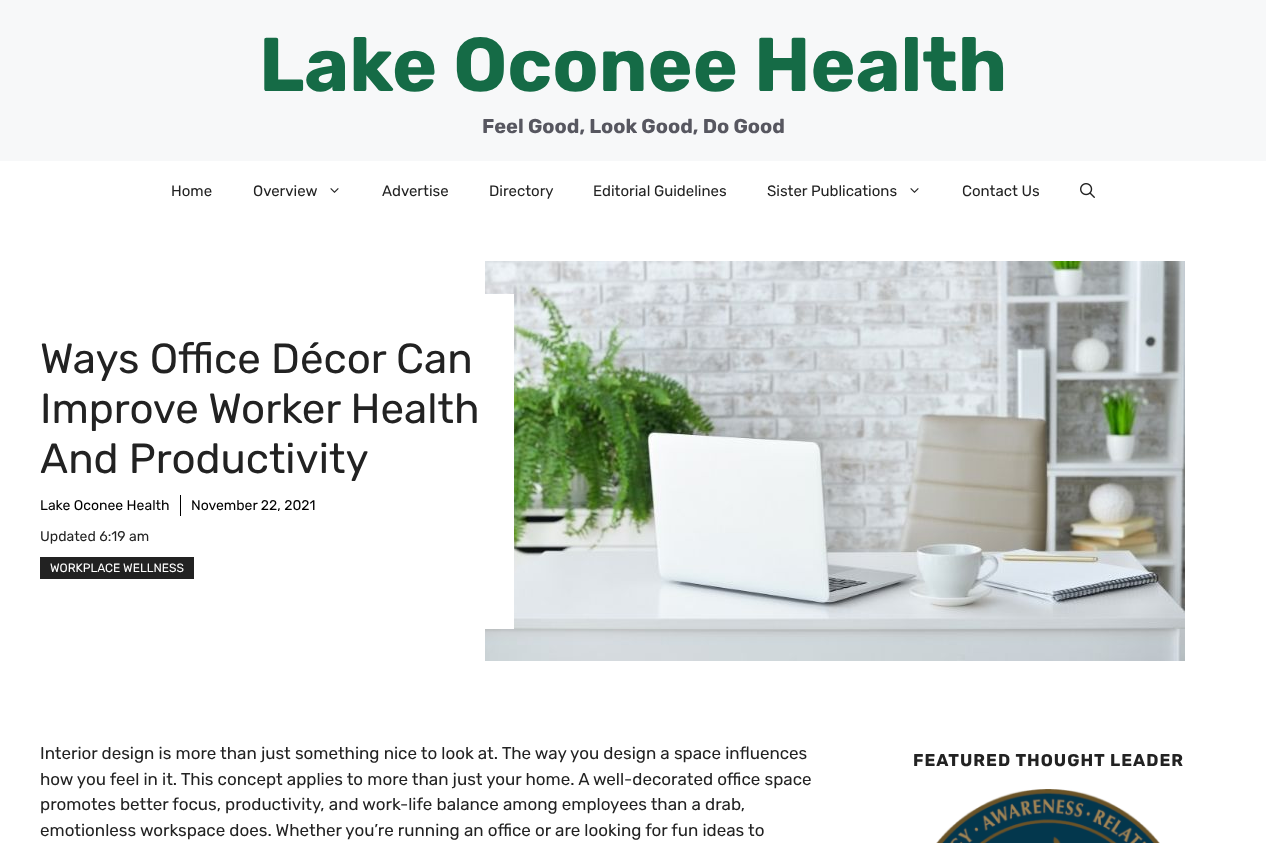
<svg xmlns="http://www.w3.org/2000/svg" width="1266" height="843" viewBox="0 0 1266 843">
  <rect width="100%" height="100%" fill="rgb(255,255,255)"/>
  <rect x="0" y="0" width="1266" height="161" fill="rgb(247,248,249)"/>
  <text x="259" y="91" font-family="Rubik" font-size="76" font-weight="bold" fill="rgb(21,107,70)">Lake Oconee Health</text>
  <text x="482" y="133" font-family="Rubik" font-size="20" font-weight="bold" fill="rgb(87,87,96)">Feel Good, Look Good, Do Good</text>
  <g font-family="Rubik" font-size="15" fill="rgb(34,34,34)">
    <text x="171" y="196">Home</text>
    <text x="253" y="196">Overview</text>
  </g>
  <image x="330" y="188" width="9" height="5" href="pic1.png"/>
  <g font-family="Rubik" font-size="15" fill="rgb(34,34,34)">
    <text x="382" y="196">Advertise</text>
    <text x="489" y="196">Directory</text>
    <text x="593" y="196">Editorial Guidelines</text>
    <text x="767" y="196">Sister Publications</text>
  </g>
  <image x="910" y="188" width="9" height="5" href="pic1.png"/>
  <text x="962" y="196" font-family="Rubik" font-size="15" fill="rgb(34,34,34)">Contact Us</text>
  <image x="1080" y="183" width="15" height="15" href="pic2.png"/>
  <image x="485" y="261" width="700" height="400" href="pic3.png"/>
  <rect x="485" y="294" width="29" height="335" fill="rgb(255,255,255)"/>
  <g font-family="Rubik" font-size="42" fill="rgb(34,34,34)">
    <text>
      <tspan x="40" y="373">Ways Office Décor Can</tspan>
      <tspan x="40" y="423">Improve Worker Health</tspan>
      <tspan x="40" y="473">And Productivity</tspan>
    </text>
  </g>
  <rect x="180" y="495" width="1" height="21" fill="rgb(0,0,0)"/>
  <g font-family="Rubik" font-size="14" fill="rgb(0,0,0)">
    <text x="40" y="510">Lake Oconee Health</text>
    <text x="191" y="510">November 22, 2021</text>
  </g>
  <text x="40" y="541" font-family="Rubik" font-size="14" fill="rgb(34,34,34)">Updated 6:19 am</text>
  <rect x="40" y="557" width="154" height="22" fill="rgb(34,34,34)"/>
  <text x="50" y="572" font-family="Rubik" font-size="12" fill="rgb(255,255,255)">WORKPLACE WELLNESS</text>
  <g font-family="Rubik" font-size="17" fill="rgb(34,34,34)">
    <text>
      <tspan x="40" y="759">Interior design is more than just something nice to look at. The way you design a space influences</tspan>
      <tspan x="40" y="785">how you feel in it. This concept applies to more than just your home. A well-decorated office space</tspan>
      <tspan x="40" y="810">promotes better focus, productivity, and work-life balance among employees than a drab,</tspan>
      <tspan x="40" y="836">emotionless workspace does. Whether you’re running an office or are looking for fun ideas to</tspan>
    </text>
  </g>
  <text x="913" y="766" font-family="Rubik" font-size="17" font-weight="bold" letter-spacing="1" fill="rgb(34,34,34)">FEATURED THOUGHT LEADER</text>
  <image x="936" y="789" width="224" height="54" href="pic4.png"/>
</svg>
